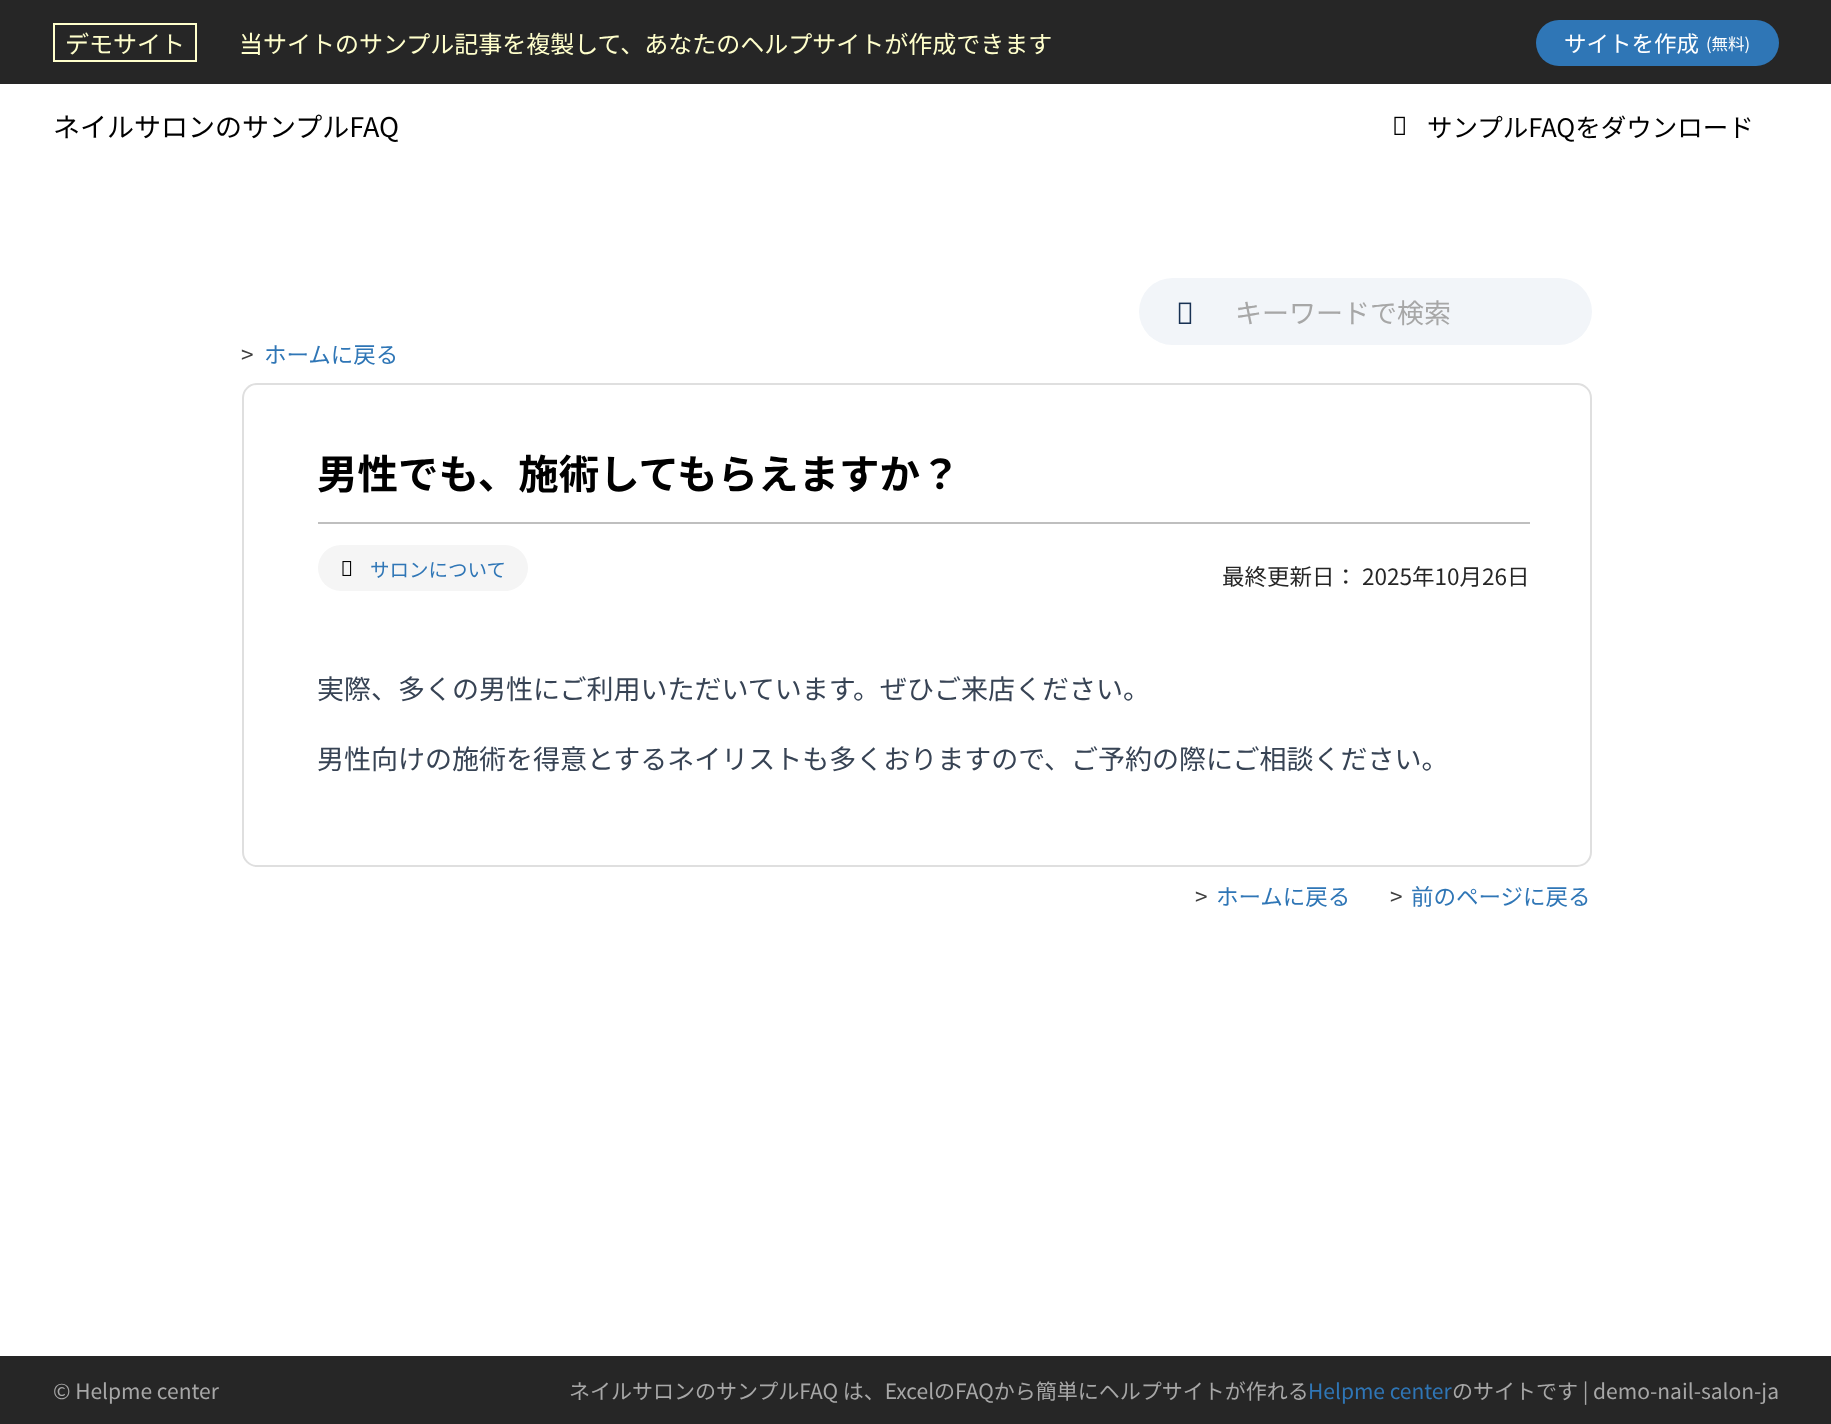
<svg xmlns="http://www.w3.org/2000/svg" width="1831" height="1424" viewBox="0 0 1831 1424">
  <rect width="100%" height="100%" fill="rgb(255,255,255)"/>
  <rect x="0" y="0" width="1831" height="84" fill="rgb(38,38,38)"/>
  <rect x="54" y="24" width="142" height="37" fill="none" stroke="rgb(255,255,204)" stroke-width="2"/>
  <g font-family="Noto Sans JP" font-size="24" fill="rgb(255,255,204)">
    <text x="65" y="53">デモサイト</text>
    <text x="239" y="53">当サイトのサンプル記事を複製して、あなたのヘルプサイトが作成できます</text>
  </g>
  <rect x="1536" y="20" width="243" height="46" rx="23" fill="rgb(47,118,182)"/>
  <text x="1564" y="52" font-family="Noto Sans JP" font-size="22.5" fill="rgb(255,255,255)">サイトを作成</text>
  <text x="1706" y="50" font-family="Noto Sans JP" font-size="16.5" fill="rgb(255,255,255)">(無料)</text>
  <text x="53" y="137" font-family="Noto Sans JP" font-size="27" fill="rgb(0,0,0)">ネイルサロンのサンプルFAQ</text>
  <image x="1394" y="116" width="11" height="19" href="pic1.png"/>
  <text x="1427" y="137" font-family="Noto Sans JP" font-size="25.5" fill="rgb(0,0,0)">サンプルFAQをダウンロード</text>
  <rect x="1139" y="278" width="453" height="67" rx="33.5" fill="rgb(242,245,249)"/>
  <image x="1178" y="302" width="14" height="22" href="pic2.png"/>
  <text x="1235" y="323" font-family="Noto Sans JP" font-size="27" fill="rgb(167,167,167)">キーワードで検索</text>
  <text x="241" y="363" font-family="Noto Sans JP" font-size="22.5" fill="rgb(64,64,64)">&gt;</text>
  <text x="264" y="363" font-family="Noto Sans JP" font-size="22.5" fill="rgb(47,118,182)">ホームに戻る</text>
  <rect x="243" y="384" width="1348" height="482" rx="14" fill="none" stroke="rgb(223,223,223)" stroke-width="2"/>
  <rect x="318" y="522" width="1212" height="2" fill="rgb(191,191,191)"/>
  <text x="317" y="489" font-family="Noto Sans JP" font-size="40.5" font-weight="bold" fill="rgb(0,0,0)">男性でも、施術してもらえますか？</text>
  <rect x="318" y="545" width="210" height="46" rx="23" fill="rgb(245,245,245)"/>
  <image x="342" y="561" width="10" height="15" href="pic3.png"/>
  <text x="370" y="577" font-family="Noto Sans JP" font-size="19.5" fill="rgb(47,118,182)">サロンについて</text>
  <text x="1222" y="585" font-family="Noto Sans JP" font-size="22.5" fill="rgb(38,38,38)">最終更新日： 2025年10月26日</text>
  <g font-family="Noto Sans JP" font-size="27" fill="rgb(55,67,84)">
    <text x="317" y="699">実際、多くの男性にご利用いただいています。ぜひご来店ください。</text>
    <text x="317" y="769">男性向けの施術を得意とするネイリストも多くおりますので、ご予約の際にご相談ください。</text>
  </g>
  <text x="1195" y="905" font-family="Noto Sans JP" font-size="22.5" fill="rgb(64,64,64)">&gt;</text>
  <text x="1216" y="905" font-family="Noto Sans JP" font-size="22.5" fill="rgb(47,118,182)">ホームに戻る</text>
  <text x="1390" y="905" font-family="Noto Sans JP" font-size="22.5" fill="rgb(64,64,64)">&gt;</text>
  <text x="1411" y="905" font-family="Noto Sans JP" font-size="22.5" fill="rgb(47,118,182)">前のページに戻る</text>
  <rect x="0" y="1356" width="1831" height="68" fill="rgb(38,38,38)"/>
  <g font-family="Noto Sans JP" font-size="21" fill="rgb(167,167,167)">
    <text x="53" y="1399">© Helpme center</text>
    <text x="569" y="1399">ネイルサロンのサンプルFAQ は、ExcelのFAQから簡単にヘルプサイトが作れる</text>
  </g>
  <text x="1308" y="1399" font-family="Noto Sans JP" font-size="21" fill="rgb(47,118,182)">Helpme center</text>
  <text x="1452" y="1399" font-family="Noto Sans JP" font-size="21" fill="rgb(167,167,167)">のサイトです | demo-nail-salon-ja</text>
</svg>
